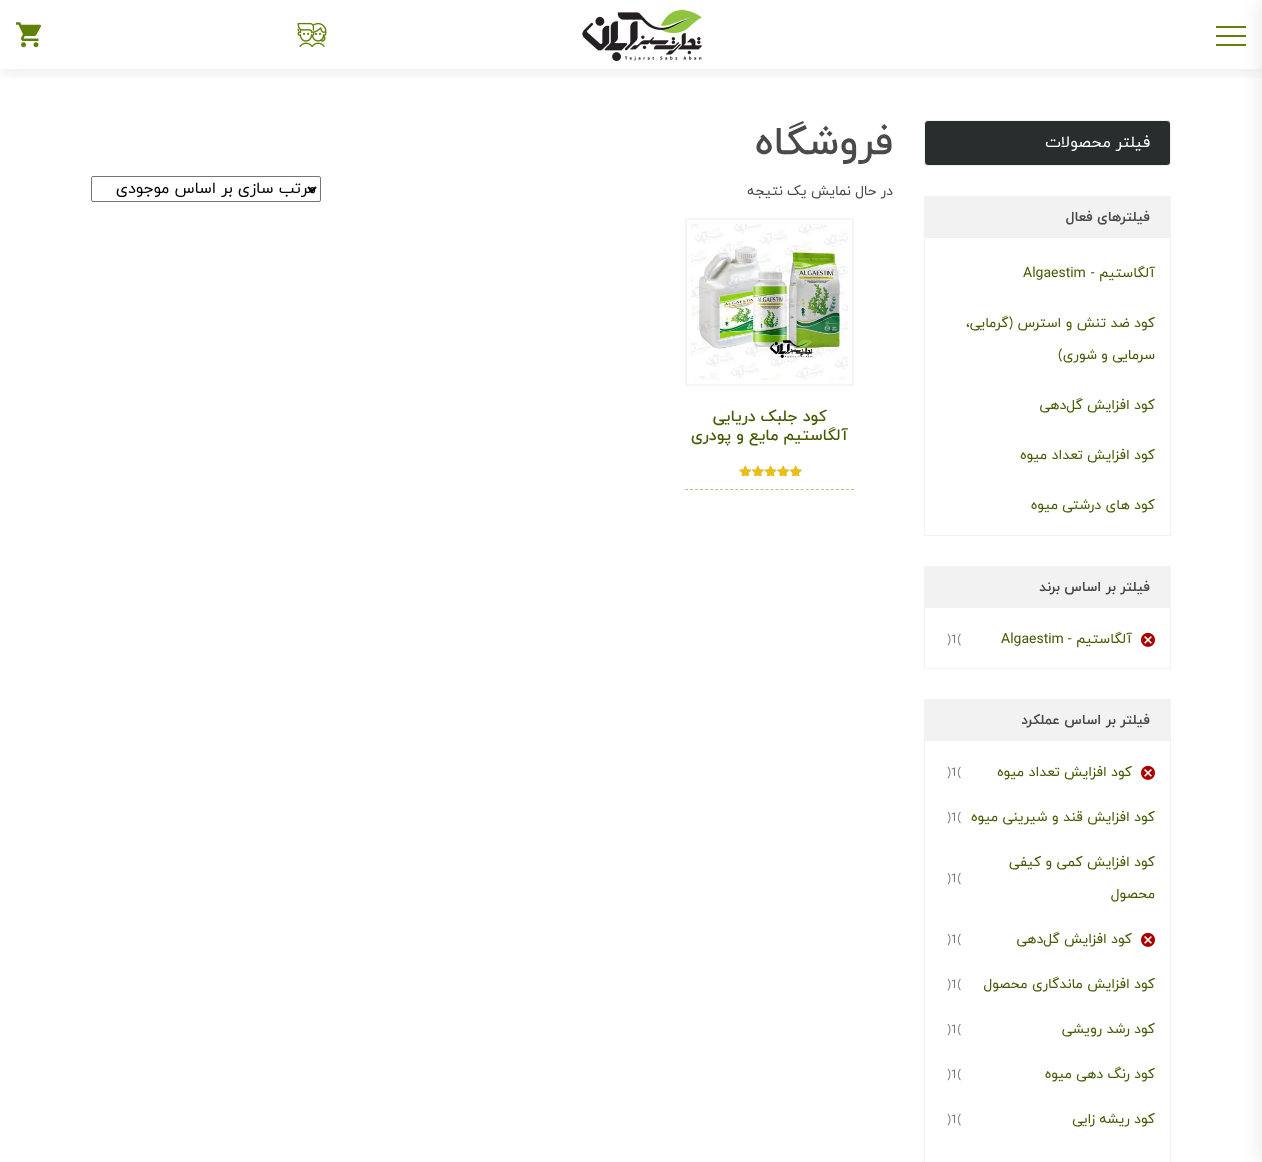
<svg xmlns="http://www.w3.org/2000/svg" width="1262" height="1162" viewBox="0 0 1262 1162">
  <defs>
    <clipPath id="clip1"><rect x="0" y="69" width="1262" height="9"/></clipPath>
  </defs>
  <rect width="100%" height="100%" fill="rgb(255,255,255)"/>
  <g clip-path="url(#clip1)">
    <rect x="0" y="1" width="1262" height="69" fill="rgba(0,0,0,0.1)" filter="blur(10px)"/>
  </g>
  <rect x="1216" y="35" width="30" height="2" fill="rgb(96,128,8)"/>
  <rect x="1216" y="26" width="30" height="2" fill="rgb(96,128,8)"/>
  <rect x="1216" y="44" width="30" height="2" fill="rgb(96,128,8)"/>
  <rect x="1262" y="1" width="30" height="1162" fill="rgba(0,0,0,0.1)" filter="blur(10px)"/>
  <image x="582" y="9" width="120" height="52" href="pic1.png"/>
  <image x="297" y="22" width="30" height="26" href="pic2.png"/>
  <image x="16" y="22" width="25" height="26" href="pic3.png"/>
  <rect x="924.5" y="120.5" width="246" height="45" rx="3.5" fill="rgb(40,46,46)" stroke="rgb(242,242,242)"/>
  <text x="1150" y="147" font-family="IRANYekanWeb" font-size="16" direction="rtl" fill="rgb(255,255,255)">فیلتر محصولات</text>
  <rect x="924.5" y="196.5" width="246" height="339" fill="none" stroke="rgb(242,242,242)"/>
  <rect x="925" y="197" width="245" height="41" fill="rgb(242,242,242)"/>
  <text x="1150" y="221" font-family="IRANYekanWeb" font-size="14" font-weight="bold" direction="rtl" fill="rgb(74,74,74)">فیلترهای فعال</text>
  <text x="1155" y="277" font-family="IRANYekanWeb" font-size="14" direction="rtl" fill="rgb(68,91,5)">آلگاستیم -</text>
  <text x="1023" y="277" font-family="IRANYekanWeb" font-size="14" fill="rgb(68,91,5)">Algaestim</text>
  <g font-family="IRANYekanWeb" font-size="14" direction="rtl" fill="rgb(68,91,5)">
    <text x="1155" y="327">کود ضد تنش و استرس (گرمایی،</text>
    <text x="1155" y="359">سرمایی و شوری)</text>
    <text x="1155" y="409">کود افزایش گل‌دهی</text>
    <text x="1155" y="459">کود افزایش تعداد میوه</text>
    <text x="1155" y="509">کود های درشتی میوه</text>
  </g>
  <rect x="924.5" y="566.5" width="246" height="102" fill="none" stroke="rgb(242,242,242)"/>
  <rect x="925" y="567" width="245" height="41" fill="rgb(242,242,242)"/>
  <text x="1150" y="591" font-family="IRANYekanWeb" font-size="14" font-weight="bold" direction="rtl" fill="rgb(74,74,74)">فیلتر بر اساس برند</text>
  <image x="1141" y="632" width="14" height="15" href="pic4.png"/>
  <text x="1132" y="643" font-family="IRANYekanWeb" font-size="14" direction="rtl" fill="rgb(68,91,5)">آلگاستیم -</text>
  <text x="1001" y="643" font-family="IRANYekanWeb" font-size="14" fill="rgb(68,91,5)">Algaestim</text>
  <text x="947" y="643" font-family="IRANYekanWeb" font-size="12" fill="rgb(119,119,119)">)1(</text>
  <rect x="924.5" y="699.5" width="246" height="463" fill="none" stroke="rgb(242,242,242)"/>
  <rect x="925" y="700" width="245" height="41" fill="rgb(242,242,242)"/>
  <text x="1150" y="724" font-family="IRANYekanWeb" font-size="14" font-weight="bold" direction="rtl" fill="rgb(74,74,74)">فیلتر بر اساس عملکرد</text>
  <image x="1141" y="765" width="14" height="15" href="pic4.png"/>
  <text x="1132" y="776" font-family="IRANYekanWeb" font-size="14" direction="rtl" fill="rgb(68,91,5)">کود افزایش تعداد میوه</text>
  <text x="947" y="776" font-family="IRANYekanWeb" font-size="12" fill="rgb(119,119,119)">)1(</text>
  <text x="1155" y="821" font-family="IRANYekanWeb" font-size="14" direction="rtl" fill="rgb(68,91,5)">کود افزایش قند و شیرینی میوه</text>
  <text x="947" y="821" font-family="IRANYekanWeb" font-size="12" fill="rgb(119,119,119)">)1(</text>
  <g font-family="IRANYekanWeb" font-size="14" direction="rtl" fill="rgb(68,91,5)">
    <text x="1155" y="866">کود افزایش کمی و کیفی</text>
    <text x="1155" y="898">محصول</text>
  </g>
  <text x="947" y="882" font-family="IRANYekanWeb" font-size="12" fill="rgb(119,119,119)">)1(</text>
  <image x="1141" y="932" width="14" height="15" href="pic4.png"/>
  <text x="1132" y="943" font-family="IRANYekanWeb" font-size="14" direction="rtl" fill="rgb(68,91,5)">کود افزایش گل‌دهی</text>
  <text x="947" y="943" font-family="IRANYekanWeb" font-size="12" fill="rgb(119,119,119)">)1(</text>
  <text x="1155" y="988" font-family="IRANYekanWeb" font-size="14" direction="rtl" fill="rgb(68,91,5)">کود افزایش ماندگاری محصول</text>
  <text x="947" y="988" font-family="IRANYekanWeb" font-size="12" fill="rgb(119,119,119)">)1(</text>
  <text x="1155" y="1033" font-family="IRANYekanWeb" font-size="14" direction="rtl" fill="rgb(68,91,5)">کود رشد رویشی</text>
  <text x="947" y="1033" font-family="IRANYekanWeb" font-size="12" fill="rgb(119,119,119)">)1(</text>
  <text x="1155" y="1078" font-family="IRANYekanWeb" font-size="14" direction="rtl" fill="rgb(68,91,5)">کود رنگ دهی میوه</text>
  <text x="947" y="1078" font-family="IRANYekanWeb" font-size="12" fill="rgb(119,119,119)">)1(</text>
  <text x="1155" y="1123" font-family="IRANYekanWeb" font-size="14" direction="rtl" fill="rgb(68,91,5)">کود ریشه زایی</text>
  <text x="947" y="1123" font-family="IRANYekanWeb" font-size="12" fill="rgb(119,119,119)">)1(</text>
  <text x="893" y="154" font-family="IRANYekanWeb" font-size="40" font-weight="500" direction="rtl" fill="rgb(74,74,74)">فروشگاه</text>
  <text x="893" y="195" font-family="IRANYekanWeb" font-size="14" direction="rtl" fill="rgb(74,74,74)">در حال نمایش یک نتیجه</text>
  <rect x="91.5" y="176.5" width="229" height="25" rx="1.5" fill="none" stroke="rgb(118,118,118)"/>
  <path d="M308 187L312 191L316 187" fill="none" stroke="rgb(0,0,0)" stroke-width="2"/>
  <text x="316" y="193" font-family="IRANYekanWeb" font-size="16" direction="rtl" fill="rgb(0,0,0)">مرتب سازی بر اساس موجودی</text>
  <path d="M685 489.5H854" fill="none" stroke="rgb(179,194,136)" stroke-dasharray="3 2.03"/>
  <rect x="686" y="219" width="167" height="166" fill="none" stroke="rgb(245,245,245)" stroke-width="2"/>
  <image x="691" y="224" width="157" height="156" href="pic5.png"/>
  <g font-family="IRANYekanWeb" font-size="16" font-weight="500" direction="rtl" fill="rgb(68,91,5)">
    <text x="827" y="421">کود جلبک دریایی</text>
    <text x="848" y="440">آلگاستیم مایع و پودری</text>
  </g>
  <image x="739" y="465" width="63" height="11" href="pic6.png"/>
  <image x="739" y="465" width="63" height="11" href="pic7.png"/>
</svg>
